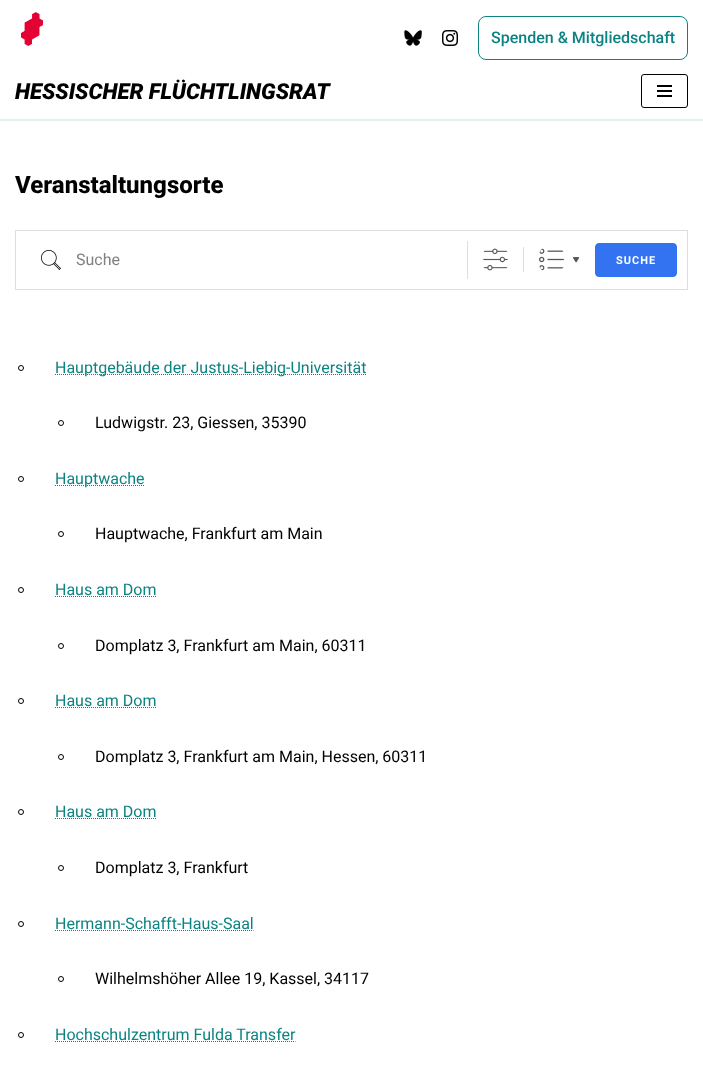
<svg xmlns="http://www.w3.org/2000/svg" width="703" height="1077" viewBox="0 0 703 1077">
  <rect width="100%" height="100%" fill="rgb(255,255,255)"/>
  <image x="404" y="30" width="18" height="16" href="pic1.png"/>
  <image x="442" y="30" width="16" height="16" href="pic2.png"/>
  <rect x="478.5" y="16.5" width="209" height="43" rx="7.5" fill="none" stroke="rgb(12,131,131)"/>
  <text x="491" y="43" font-family="Roboto" font-size="16" font-weight="500" fill="rgb(12,131,131)">Spenden &amp; Mitgliedschaft</text>
  <rect x="0" y="119" width="703" height="2" fill="rgb(230,239,239)"/>
  <image x="21" y="12" width="22" height="34" href="pic3.png"/>
  <text x="15" y="99" font-family="Roboto" font-size="22" font-weight="900" font-style="italic" fill="rgb(0,0,0)">HESSISCHER FLÜCHTLINGSRAT</text>
  <rect x="641.5" y="74.5" width="46" height="33" rx="2.5" fill="none" stroke="rgb(0,0,0)"/>
  <rect x="657" y="85" width="15" height="2" fill="rgb(0,0,0)"/>
  <rect x="657" y="90" width="15" height="2" fill="rgb(0,0,0)"/>
  <rect x="657" y="95" width="15" height="2" fill="rgb(0,0,0)"/>
  <text x="15" y="193" font-family="Roboto" font-size="24" font-weight="800" fill="rgb(0,0,0)">Veranstaltungsorte</text>
  <rect x="15.5" y="230.5" width="672" height="59" fill="none" stroke="rgb(222,222,222)"/>
  <rect x="467" y="241" width="1" height="38" fill="rgb(222,222,222)"/>
  <image x="41" y="250" width="20" height="20" href="pic4.png"/>
  <text x="76" y="265" font-family="Roboto" font-size="16" fill="rgb(128,128,128)">Suche</text>
  <image x="483" y="248" width="25" height="23" href="pic5.png"/>
  <rect x="523" y="247" width="1" height="25" fill="rgb(222,222,222)"/>
  <image x="573" y="257" width="7" height="6" href="pic6.png"/>
  <image x="539" y="248" width="25" height="23" href="pic7.png"/>
  <rect x="595.5" y="243.5" width="81" height="33" rx="3.5" fill="rgb(51,114,240)" stroke="rgb(51,114,240)"/>
  <text x="616" y="264" font-family="Roboto" font-size="11" font-weight="bold" letter-spacing="1" fill="rgb(255,255,255)">SUCHE</text>
  <circle cx="21" cy="368" r="2.5" fill="none" stroke="rgb(0,0,0)"/>
  <path d="M55 374.5H366.5" fill="none" stroke="rgb(12,131,131)" stroke-dasharray="1 1"/>
  <text x="55" y="373" font-family="Roboto" font-size="16" fill="rgb(12,131,131)">Hauptgebäude der Justus-Liebig-Universität</text>
  <circle cx="61" cy="423" r="2.5" fill="none" stroke="rgb(0,0,0)"/>
  <text x="95" y="428" font-family="Roboto" font-size="16" fill="rgb(0,0,0)">Ludwigstr. 23, Giessen, 35390</text>
  <circle cx="21" cy="479" r="2.5" fill="none" stroke="rgb(0,0,0)"/>
  <path d="M55 485.5H144.5" fill="none" stroke="rgb(12,131,131)" stroke-dasharray="1 1"/>
  <text x="55" y="484" font-family="Roboto" font-size="16" fill="rgb(12,131,131)">Hauptwache</text>
  <circle cx="61" cy="534" r="2.5" fill="none" stroke="rgb(0,0,0)"/>
  <text x="95" y="539" font-family="Roboto" font-size="16" fill="rgb(0,0,0)">Hauptwache, Frankfurt am Main</text>
  <circle cx="21" cy="590" r="2.5" fill="none" stroke="rgb(0,0,0)"/>
  <text x="55" y="595" font-family="Roboto" font-size="16" fill="rgb(12,131,131)">Haus am Dom</text>
  <path d="M55 596.5H156.5" fill="none" stroke="rgb(12,131,131)" stroke-dasharray="1 1"/>
  <circle cx="61" cy="646" r="2.5" fill="none" stroke="rgb(0,0,0)"/>
  <text x="95" y="651" font-family="Roboto" font-size="16" fill="rgb(0,0,0)">Domplatz 3, Frankfurt am Main, 60311</text>
  <circle cx="21" cy="701" r="2.5" fill="none" stroke="rgb(0,0,0)"/>
  <text x="55" y="706" font-family="Roboto" font-size="16" fill="rgb(12,131,131)">Haus am Dom</text>
  <path d="M55 707.5H156.5" fill="none" stroke="rgb(12,131,131)" stroke-dasharray="1 1"/>
  <circle cx="61" cy="757" r="2.5" fill="none" stroke="rgb(0,0,0)"/>
  <text x="95" y="762" font-family="Roboto" font-size="16" fill="rgb(0,0,0)">Domplatz 3, Frankfurt am Main, Hessen, 60311</text>
  <circle cx="21" cy="812" r="2.5" fill="none" stroke="rgb(0,0,0)"/>
  <text x="55" y="817" font-family="Roboto" font-size="16" fill="rgb(12,131,131)">Haus am Dom</text>
  <path d="M55 818.5H156.5" fill="none" stroke="rgb(12,131,131)" stroke-dasharray="1 1"/>
  <circle cx="61" cy="868" r="2.5" fill="none" stroke="rgb(0,0,0)"/>
  <text x="95" y="873" font-family="Roboto" font-size="16" fill="rgb(0,0,0)">Domplatz 3, Frankfurt</text>
  <circle cx="21" cy="924" r="2.5" fill="none" stroke="rgb(0,0,0)"/>
  <text x="55" y="929" font-family="Roboto" font-size="16" fill="rgb(12,131,131)">Hermann-Schafft-Haus-Saal</text>
  <path d="M55 930.5H253.5" fill="none" stroke="rgb(12,131,131)" stroke-dasharray="1 1"/>
  <circle cx="61" cy="979" r="2.5" fill="none" stroke="rgb(0,0,0)"/>
  <text x="95" y="984" font-family="Roboto" font-size="16" fill="rgb(0,0,0)">Wilhelmshöher Allee 19, Kassel, 34117</text>
  <circle cx="21" cy="1035" r="2.5" fill="none" stroke="rgb(0,0,0)"/>
  <text x="55" y="1040" font-family="Roboto" font-size="16" fill="rgb(12,131,131)">Hochschulzentrum Fulda Transfer</text>
  <path d="M55 1041.5H295.5" fill="none" stroke="rgb(12,131,131)" stroke-dasharray="1 1"/>
</svg>
